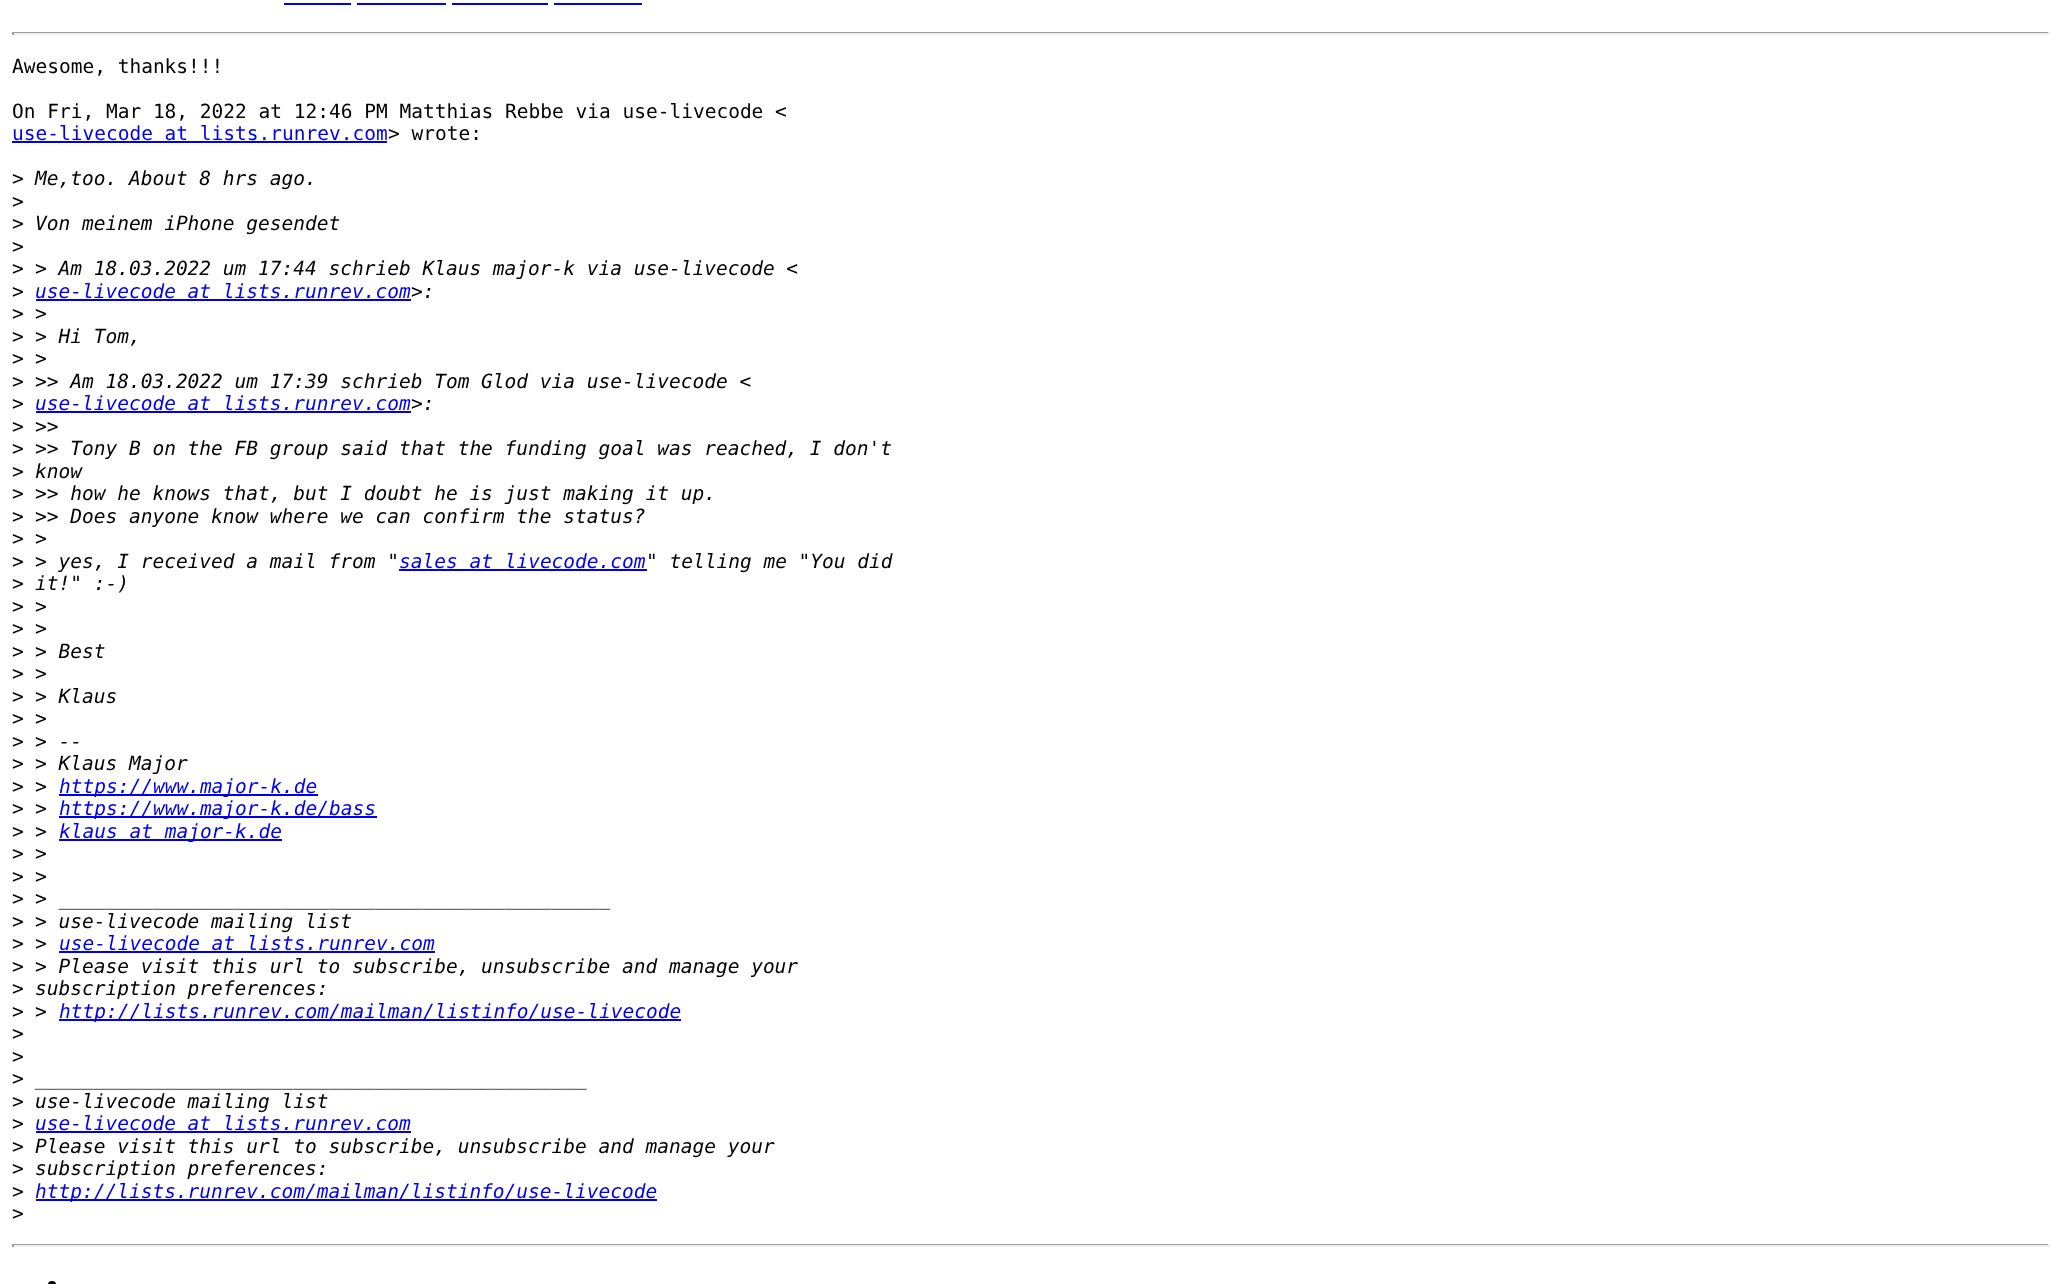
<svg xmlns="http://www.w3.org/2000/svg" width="2061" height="1284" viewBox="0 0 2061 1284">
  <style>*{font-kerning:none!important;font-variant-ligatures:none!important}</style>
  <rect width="100%" height="100%" fill="rgb(255,255,255)"/>
  <rect x="284" y="3" width="67" height="2" fill="rgb(0,0,238)"/>
  <rect x="357" y="3" width="89" height="2" fill="rgb(0,0,238)"/>
  <rect x="452" y="3" width="96" height="2" fill="rgb(0,0,238)"/>
  <rect x="554" y="3" width="88" height="2" fill="rgb(0,0,238)"/>
  <rect x="12" y="32" width="2037" height="1" fill="rgb(159,159,159)"/>
  <rect x="2048" y="32" width="2" height="3" fill="rgb(238,238,238)"/>
  <rect x="12" y="33" width="2037" height="2" fill="rgb(238,238,238)"/>
  <rect x="12" y="32" width="2" height="3" fill="rgb(159,159,159)"/>
  <g font-family="DejaVu Sans Mono" font-size="19.5" fill="rgb(0,0,0)">
    <text x="12" y="73">Awesome, thanks!!!</text>
    <text x="12" y="118">On Fri, Mar 18, 2022 at 12:46 PM Matthias Rebbe via use-livecode &lt;</text>
  </g>
  <text x="12" y="140" font-family="DejaVu Sans Mono" font-size="19.5" fill="rgb(0,0,238)">use-livecode at lists.runrev.com</text>
  <rect x="12" y="141" width="375" height="2" fill="rgb(0,0,238)"/>
  <g font-family="DejaVu Sans Mono" font-size="19.5" fill="rgb(0,0,0)">
    <text x="388" y="140">&gt; wrote:</text>
    <text x="12" y="185">&gt;</text>
  </g>
  <text x="35" y="185" font-family="DejaVu Sans Mono" font-size="19.5" font-style="italic" fill="rgb(0,0,0)">Me,too. About 8 hrs ago.</text>
  <g font-family="DejaVu Sans Mono" font-size="19.5" fill="rgb(0,0,0)">
    <text>
      <tspan x="12" y="208">&gt;</tspan>
      <tspan x="12" y="230">&gt;</tspan>
    </text>
  </g>
  <text x="35" y="230" font-family="DejaVu Sans Mono" font-size="19.5" font-style="italic" fill="rgb(0,0,0)">Von meinem iPhone gesendet</text>
  <g font-family="DejaVu Sans Mono" font-size="19.5" fill="rgb(0,0,0)">
    <text>
      <tspan x="12" y="253">&gt;</tspan>
      <tspan x="12" y="275">&gt;</tspan>
    </text>
  </g>
  <text x="35" y="275" font-family="DejaVu Sans Mono" font-size="19.5" font-style="italic" fill="rgb(0,0,0)">&gt; Am 18.03.2022 um 17:44 schrieb Klaus major-k via use-livecode &lt;</text>
  <text x="12" y="298" font-family="DejaVu Sans Mono" font-size="19.5" fill="rgb(0,0,0)">&gt;</text>
  <text x="35" y="298" font-family="DejaVu Sans Mono" font-size="19.5" font-style="italic" fill="rgb(0,0,238)">use-livecode at lists.runrev.com</text>
  <text x="411" y="298" font-family="DejaVu Sans Mono" font-size="19.5" font-style="italic" fill="rgb(0,0,0)">&gt;:</text>
  <rect x="36" y="299" width="375" height="2" fill="rgb(0,0,238)"/>
  <text x="12" y="320" font-family="DejaVu Sans Mono" font-size="19.5" fill="rgb(0,0,0)">&gt;</text>
  <text x="35" y="320" font-family="DejaVu Sans Mono" font-size="19.5" font-style="italic" fill="rgb(0,0,0)">&gt;</text>
  <text x="12" y="343" font-family="DejaVu Sans Mono" font-size="19.5" fill="rgb(0,0,0)">&gt;</text>
  <text x="35" y="343" font-family="DejaVu Sans Mono" font-size="19.5" font-style="italic" fill="rgb(0,0,0)">&gt; Hi Tom,</text>
  <text x="12" y="365" font-family="DejaVu Sans Mono" font-size="19.5" fill="rgb(0,0,0)">&gt;</text>
  <text x="35" y="365" font-family="DejaVu Sans Mono" font-size="19.5" font-style="italic" fill="rgb(0,0,0)">&gt;</text>
  <text x="12" y="388" font-family="DejaVu Sans Mono" font-size="19.5" fill="rgb(0,0,0)">&gt;</text>
  <text x="35" y="388" font-family="DejaVu Sans Mono" font-size="19.5" font-style="italic" fill="rgb(0,0,0)">&gt;&gt; Am 18.03.2022 um 17:39 schrieb Tom Glod via use-livecode &lt;</text>
  <text x="12" y="410" font-family="DejaVu Sans Mono" font-size="19.5" fill="rgb(0,0,0)">&gt;</text>
  <text x="35" y="410" font-family="DejaVu Sans Mono" font-size="19.5" font-style="italic" fill="rgb(0,0,238)">use-livecode at lists.runrev.com</text>
  <text x="411" y="410" font-family="DejaVu Sans Mono" font-size="19.5" font-style="italic" fill="rgb(0,0,0)">&gt;:</text>
  <rect x="36" y="411" width="375" height="2" fill="rgb(0,0,238)"/>
  <text x="12" y="433" font-family="DejaVu Sans Mono" font-size="19.5" fill="rgb(0,0,0)">&gt;</text>
  <text x="35" y="433" font-family="DejaVu Sans Mono" font-size="19.5" font-style="italic" fill="rgb(0,0,0)">&gt;&gt;</text>
  <text x="12" y="455" font-family="DejaVu Sans Mono" font-size="19.5" fill="rgb(0,0,0)">&gt;</text>
  <text x="35" y="455" font-family="DejaVu Sans Mono" font-size="19.5" font-style="italic" fill="rgb(0,0,0)">&gt;&gt; Tony B on the FB group said that the funding goal was reached, I don't</text>
  <text x="12" y="478" font-family="DejaVu Sans Mono" font-size="19.5" fill="rgb(0,0,0)">&gt;</text>
  <text x="35" y="478" font-family="DejaVu Sans Mono" font-size="19.5" font-style="italic" fill="rgb(0,0,0)">know</text>
  <text x="12" y="500" font-family="DejaVu Sans Mono" font-size="19.5" fill="rgb(0,0,0)">&gt;</text>
  <text x="35" y="500" font-family="DejaVu Sans Mono" font-size="19.5" font-style="italic" fill="rgb(0,0,0)">&gt;&gt; how he knows that, but I doubt he is just making it up.</text>
  <text x="12" y="523" font-family="DejaVu Sans Mono" font-size="19.5" fill="rgb(0,0,0)">&gt;</text>
  <text x="35" y="523" font-family="DejaVu Sans Mono" font-size="19.5" font-style="italic" fill="rgb(0,0,0)">&gt;&gt; Does anyone know where we can confirm the status?</text>
  <text x="12" y="545" font-family="DejaVu Sans Mono" font-size="19.5" fill="rgb(0,0,0)">&gt;</text>
  <text x="35" y="545" font-family="DejaVu Sans Mono" font-size="19.5" font-style="italic" fill="rgb(0,0,0)">&gt;</text>
  <text x="12" y="568" font-family="DejaVu Sans Mono" font-size="19.5" fill="rgb(0,0,0)">&gt;</text>
  <text x="35" y="568" font-family="DejaVu Sans Mono" font-size="19.5" font-style="italic" fill="rgb(0,0,0)">&gt; yes, I received a mail from "</text>
  <rect x="399" y="569" width="248" height="2" fill="rgb(0,0,238)"/>
  <text x="399" y="568" font-family="DejaVu Sans Mono" font-size="19.5" font-style="italic" fill="rgb(0,0,238)">sales at livecode.com</text>
  <text x="646" y="568" font-family="DejaVu Sans Mono" font-size="19.5" font-style="italic" fill="rgb(0,0,0)">" telling me "You did</text>
  <text x="12" y="590" font-family="DejaVu Sans Mono" font-size="19.5" fill="rgb(0,0,0)">&gt;</text>
  <text x="35" y="590" font-family="DejaVu Sans Mono" font-size="19.5" font-style="italic" fill="rgb(0,0,0)">it!" :-)</text>
  <text x="12" y="613" font-family="DejaVu Sans Mono" font-size="19.5" fill="rgb(0,0,0)">&gt;</text>
  <text x="35" y="613" font-family="DejaVu Sans Mono" font-size="19.5" font-style="italic" fill="rgb(0,0,0)">&gt;</text>
  <text x="12" y="635" font-family="DejaVu Sans Mono" font-size="19.5" fill="rgb(0,0,0)">&gt;</text>
  <text x="35" y="635" font-family="DejaVu Sans Mono" font-size="19.5" font-style="italic" fill="rgb(0,0,0)">&gt;</text>
  <text x="12" y="658" font-family="DejaVu Sans Mono" font-size="19.5" fill="rgb(0,0,0)">&gt;</text>
  <text x="35" y="658" font-family="DejaVu Sans Mono" font-size="19.5" font-style="italic" fill="rgb(0,0,0)">&gt; Best</text>
  <text x="12" y="680" font-family="DejaVu Sans Mono" font-size="19.5" fill="rgb(0,0,0)">&gt;</text>
  <text x="35" y="680" font-family="DejaVu Sans Mono" font-size="19.5" font-style="italic" fill="rgb(0,0,0)">&gt;</text>
  <text x="12" y="703" font-family="DejaVu Sans Mono" font-size="19.5" fill="rgb(0,0,0)">&gt;</text>
  <text x="35" y="703" font-family="DejaVu Sans Mono" font-size="19.5" font-style="italic" fill="rgb(0,0,0)">&gt; Klaus</text>
  <text x="12" y="725" font-family="DejaVu Sans Mono" font-size="19.5" fill="rgb(0,0,0)">&gt;</text>
  <text x="35" y="725" font-family="DejaVu Sans Mono" font-size="19.5" font-style="italic" fill="rgb(0,0,0)">&gt;</text>
  <text x="12" y="748" font-family="DejaVu Sans Mono" font-size="19.5" fill="rgb(0,0,0)">&gt;</text>
  <text x="35" y="748" font-family="DejaVu Sans Mono" font-size="19.5" font-style="italic" fill="rgb(0,0,0)">&gt; --</text>
  <text x="12" y="770" font-family="DejaVu Sans Mono" font-size="19.5" fill="rgb(0,0,0)">&gt;</text>
  <text x="35" y="770" font-family="DejaVu Sans Mono" font-size="19.5" font-style="italic" fill="rgb(0,0,0)">&gt; Klaus Major</text>
  <text x="12" y="793" font-family="DejaVu Sans Mono" font-size="19.5" fill="rgb(0,0,0)">&gt;</text>
  <text x="35" y="793" font-family="DejaVu Sans Mono" font-size="19.5" font-style="italic" fill="rgb(0,0,0)">&gt;</text>
  <rect x="59" y="794" width="259" height="2" fill="rgb(0,0,238)"/>
  <text x="59" y="793" font-family="DejaVu Sans Mono" font-size="19.5" font-style="italic" fill="rgb(0,0,238)">https://www.major-k.de</text>
  <text x="12" y="815" font-family="DejaVu Sans Mono" font-size="19.5" fill="rgb(0,0,0)">&gt;</text>
  <text x="35" y="815" font-family="DejaVu Sans Mono" font-size="19.5" font-style="italic" fill="rgb(0,0,0)">&gt;</text>
  <rect x="59" y="816" width="318" height="2" fill="rgb(0,0,238)"/>
  <text x="59" y="815" font-family="DejaVu Sans Mono" font-size="19.5" font-style="italic" fill="rgb(0,0,238)">https://www.major-k.de/bass</text>
  <text x="12" y="838" font-family="DejaVu Sans Mono" font-size="19.5" fill="rgb(0,0,0)">&gt;</text>
  <text x="35" y="838" font-family="DejaVu Sans Mono" font-size="19.5" font-style="italic" fill="rgb(0,0,0)">&gt;</text>
  <rect x="59" y="839" width="223" height="2" fill="rgb(0,0,238)"/>
  <text x="59" y="838" font-family="DejaVu Sans Mono" font-size="19.5" font-style="italic" fill="rgb(0,0,238)">klaus at major-k.de</text>
  <text x="12" y="860" font-family="DejaVu Sans Mono" font-size="19.5" fill="rgb(0,0,0)">&gt;</text>
  <text x="35" y="860" font-family="DejaVu Sans Mono" font-size="19.5" font-style="italic" fill="rgb(0,0,0)">&gt;</text>
  <text x="12" y="883" font-family="DejaVu Sans Mono" font-size="19.5" fill="rgb(0,0,0)">&gt;</text>
  <text x="35" y="883" font-family="DejaVu Sans Mono" font-size="19.5" font-style="italic" fill="rgb(0,0,0)">&gt;</text>
  <text x="12" y="905" font-family="DejaVu Sans Mono" font-size="19.5" fill="rgb(0,0,0)">&gt;</text>
  <text x="35" y="905" font-family="DejaVu Sans Mono" font-size="19.5" font-style="italic" fill="rgb(0,0,0)">&gt; _______________________________________________</text>
  <text x="12" y="928" font-family="DejaVu Sans Mono" font-size="19.5" fill="rgb(0,0,0)">&gt;</text>
  <text x="35" y="928" font-family="DejaVu Sans Mono" font-size="19.5" font-style="italic" fill="rgb(0,0,0)">&gt; use-livecode mailing list</text>
  <text x="12" y="950" font-family="DejaVu Sans Mono" font-size="19.5" fill="rgb(0,0,0)">&gt;</text>
  <text x="35" y="950" font-family="DejaVu Sans Mono" font-size="19.5" font-style="italic" fill="rgb(0,0,0)">&gt;</text>
  <text x="59" y="950" font-family="DejaVu Sans Mono" font-size="19.5" font-style="italic" fill="rgb(0,0,238)">use-livecode at lists.runrev.com</text>
  <rect x="59" y="951" width="376" height="2" fill="rgb(0,0,238)"/>
  <text x="12" y="973" font-family="DejaVu Sans Mono" font-size="19.5" fill="rgb(0,0,0)">&gt;</text>
  <text x="35" y="973" font-family="DejaVu Sans Mono" font-size="19.5" font-style="italic" fill="rgb(0,0,0)">&gt; Please visit this url to subscribe, unsubscribe and manage your</text>
  <text x="12" y="995" font-family="DejaVu Sans Mono" font-size="19.5" fill="rgb(0,0,0)">&gt;</text>
  <text x="35" y="995" font-family="DejaVu Sans Mono" font-size="19.5" font-style="italic" fill="rgb(0,0,0)">subscription preferences:</text>
  <text x="12" y="1018" font-family="DejaVu Sans Mono" font-size="19.5" fill="rgb(0,0,0)">&gt;</text>
  <text x="35" y="1018" font-family="DejaVu Sans Mono" font-size="19.5" font-style="italic" fill="rgb(0,0,0)">&gt;</text>
  <rect x="59" y="1019" width="622" height="2" fill="rgb(0,0,238)"/>
  <text x="59" y="1018" font-family="DejaVu Sans Mono" font-size="19.5" font-style="italic" fill="rgb(0,0,238)">http://lists.runrev.com/mailman/listinfo/use-livecode</text>
  <g font-family="DejaVu Sans Mono" font-size="19.5" fill="rgb(0,0,0)">
    <text>
      <tspan x="12" y="1040">&gt;</tspan>
      <tspan x="12" y="1063">&gt;</tspan>
      <tspan x="12" y="1085">&gt;</tspan>
    </text>
  </g>
  <text x="35" y="1085" font-family="DejaVu Sans Mono" font-size="19.5" font-style="italic" fill="rgb(0,0,0)">_______________________________________________</text>
  <text x="12" y="1108" font-family="DejaVu Sans Mono" font-size="19.5" fill="rgb(0,0,0)">&gt;</text>
  <text x="35" y="1108" font-family="DejaVu Sans Mono" font-size="19.5" font-style="italic" fill="rgb(0,0,0)">use-livecode mailing list</text>
  <text x="12" y="1130" font-family="DejaVu Sans Mono" font-size="19.5" fill="rgb(0,0,0)">&gt;</text>
  <text x="35" y="1130" font-family="DejaVu Sans Mono" font-size="19.5" font-style="italic" fill="rgb(0,0,238)">use-livecode at lists.runrev.com</text>
  <rect x="36" y="1131" width="375" height="2" fill="rgb(0,0,238)"/>
  <text x="12" y="1153" font-family="DejaVu Sans Mono" font-size="19.5" fill="rgb(0,0,0)">&gt;</text>
  <text x="35" y="1153" font-family="DejaVu Sans Mono" font-size="19.5" font-style="italic" fill="rgb(0,0,0)">Please visit this url to subscribe, unsubscribe and manage your</text>
  <text x="12" y="1175" font-family="DejaVu Sans Mono" font-size="19.5" fill="rgb(0,0,0)">&gt;</text>
  <text x="35" y="1175" font-family="DejaVu Sans Mono" font-size="19.5" font-style="italic" fill="rgb(0,0,0)">subscription preferences:</text>
  <text x="12" y="1198" font-family="DejaVu Sans Mono" font-size="19.5" fill="rgb(0,0,0)">&gt;</text>
  <rect x="36" y="1199" width="621" height="2" fill="rgb(0,0,238)"/>
  <text x="35" y="1198" font-family="DejaVu Sans Mono" font-size="19.5" font-style="italic" fill="rgb(0,0,238)">http://lists.runrev.com/mailman/listinfo/use-livecode</text>
  <text x="12" y="1220" font-family="DejaVu Sans Mono" font-size="19.5" fill="rgb(0,0,0)">&gt;</text>
  <rect x="12" y="1244" width="2037" height="1" fill="rgb(159,159,159)"/>
  <rect x="2048" y="1244" width="2" height="3" fill="rgb(238,238,238)"/>
  <rect x="12" y="1245" width="2037" height="2" fill="rgb(238,238,238)"/>
  <rect x="12" y="1244" width="2" height="3" fill="rgb(159,159,159)"/>
  <rect x="48" y="1281" width="8" height="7" rx="4" fill="rgb(0,0,0)"/>
</svg>
